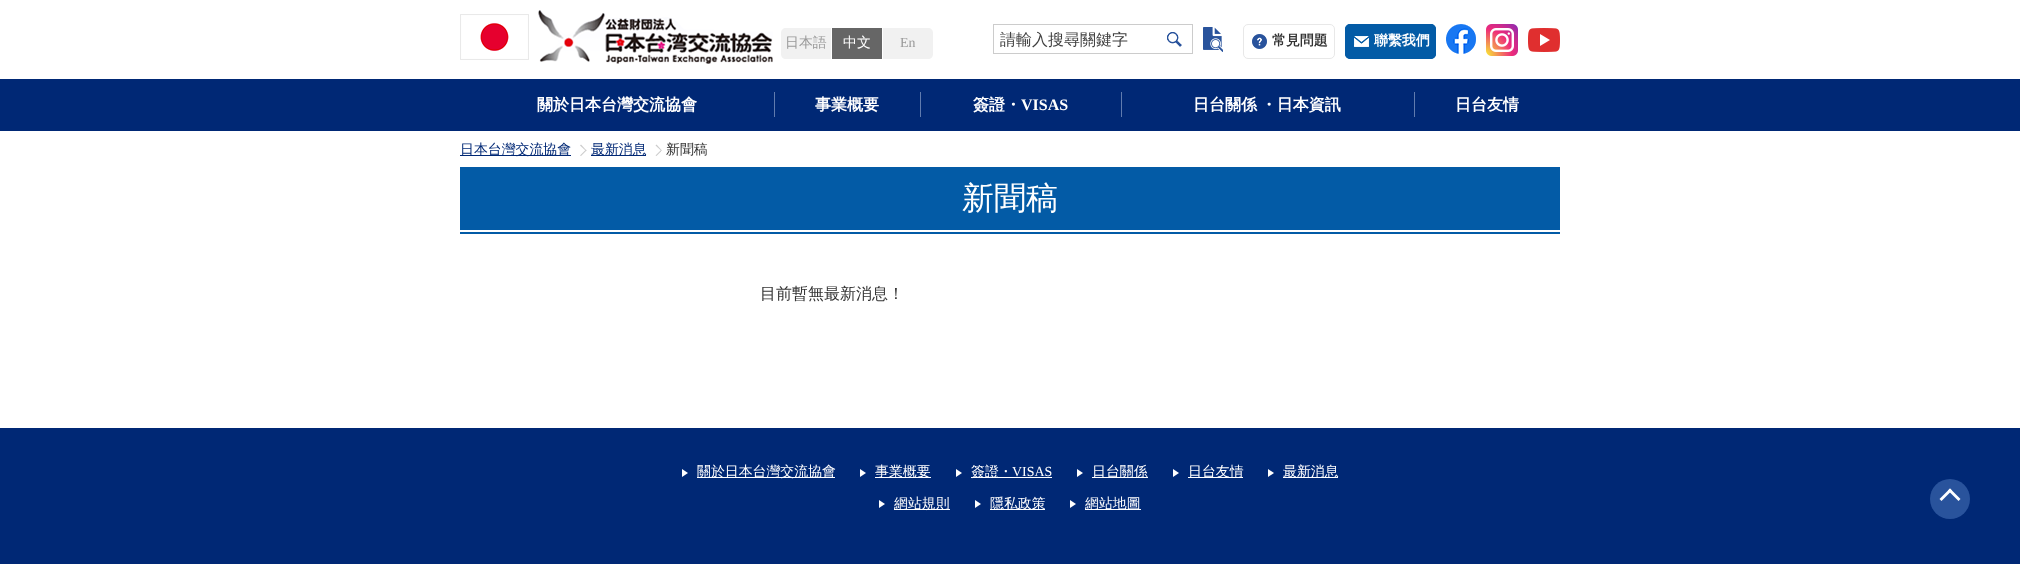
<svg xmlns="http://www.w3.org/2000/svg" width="2020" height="569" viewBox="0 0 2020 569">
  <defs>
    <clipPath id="clip1"><rect x="651" y="144" width="10" height="12"/></clipPath>
  </defs>
  <rect width="100%" height="100%" fill="rgb(255,255,255)"/>
  <image x="460" y="10" width="313" height="54" href="pic1.png"/>
  <path d="M786 28H831V59H786C783 59 781 57 781 54V33C781 30 783 28 786 28Z" fill="rgb(241,241,241)"/>
  <text x="785" y="47" font-family="WenQuanYi Zen Hei" font-size="13.9" font-weight="500" fill="rgb(153,153,153)">日本語</text>
  <rect x="832" y="28" width="50" height="31" fill="rgb(102,102,102)"/>
  <text x="843" y="47" font-family="WenQuanYi Zen Hei" font-size="13.9" font-weight="500" fill="rgb(255,255,255)">中文</text>
  <path d="M883 28H928C931 28 933 30 933 33V54C933 57 931 59 928 59H883Z" fill="rgb(241,241,241)"/>
  <text x="900" y="47" font-family="Liberation Serif" font-size="13.9" fill="rgb(153,153,153)">En</text>
  <rect x="993.5" y="24.5" width="199" height="29" fill="none" stroke="rgb(204,204,204)"/>
  <text x="1000" y="45" font-family="WenQuanYi Zen Hei" font-size="16" font-weight="500" fill="rgb(63,63,63)">請輸入搜尋關鍵字</text>
  <image x="1167" y="32" width="15" height="15" href="pic2.png"/>
  <image x="1203" y="27" width="20" height="25" href="pic3.png"/>
  <image x="1252" y="34" width="15" height="15" href="pic4.png"/>
  <rect x="1243.5" y="24.5" width="91" height="34" rx="4.5" fill="none" stroke="rgb(232,232,232)"/>
  <text x="1272" y="45" font-family="WenQuanYi Zen Hei" font-size="13.9" font-weight="bold" fill="rgb(51,51,51)">常見問題</text>
  <rect x="1345" y="24" width="91" height="35" rx="5" fill="rgb(3,91,166)"/>
  <image x="1354" y="36" width="15" height="11" href="pic5.png"/>
  <rect x="1345.5" y="24.5" width="90" height="34" rx="4.5" fill="none" stroke="rgb(3,91,166)"/>
  <text x="1374" y="45" font-family="WenQuanYi Zen Hei" font-size="13.9" font-weight="bold" fill="rgb(255,255,255)">聯繫我們</text>
  <image x="1446" y="24" width="30" height="30" href="pic6.png"/>
  <image x="1486" y="24" width="32" height="32" href="pic7.png"/>
  <image x="1528" y="28" width="32" height="24" href="pic8.png"/>
  <rect x="0" y="79" width="2020" height="52" fill="rgb(0,40,117)"/>
  <text x="537" y="110" font-family="WenQuanYi Zen Hei" font-size="16" font-weight="bold" fill="rgb(255,255,255)">關於日本台灣交流協會</text>
  <rect x="774" y="92" width="1" height="25" fill="rgb(96,123,174)"/>
  <text x="815" y="110" font-family="WenQuanYi Zen Hei" font-size="16" font-weight="bold" fill="rgb(255,255,255)">事業概要</text>
  <rect x="920" y="92" width="1" height="25" fill="rgb(96,123,174)"/>
  <text x="973" y="110" font-family="WenQuanYi Zen Hei" font-size="16" font-weight="bold" fill="rgb(255,255,255)">簽證・</text>
  <text x="1021" y="110" font-family="Liberation Serif" font-size="16" font-weight="bold" fill="rgb(255,255,255)">VISAS</text>
  <rect x="1121" y="92" width="1" height="25" fill="rgb(96,123,174)"/>
  <text x="1193" y="110" word-spacing="-1" font-family="WenQuanYi Zen Hei" font-size="16" font-weight="bold" fill="rgb(255,255,255)">日台關係 ・日本資訊</text>
  <rect x="1414" y="92" width="1" height="25" fill="rgb(96,123,174)"/>
  <text x="1455" y="110" font-family="WenQuanYi Zen Hei" font-size="16" font-weight="bold" fill="rgb(255,255,255)">日台友情</text>
  <rect x="460" y="155" width="111" height="1" fill="rgb(0,40,117)"/>
  <text x="460" y="154" font-family="WenQuanYi Zen Hei" font-size="13.9" font-weight="500" fill="rgb(0,40,117)">日本台灣交流協會</text>
  <path d="M586.5 150.5L581 156L580 155.5L586 149.5Z" fill="rgb(204,204,204)"/>
  <path d="M586.5 150.5L586 151L580 145.5L581 144.5Z" fill="rgb(204,204,204)"/>
  <rect x="591" y="155" width="55" height="1" fill="rgb(0,40,117)"/>
  <text x="591" y="154" font-family="WenQuanYi Zen Hei" font-size="13.9" font-weight="500" fill="rgb(0,40,117)">最新消息</text>
  <g clip-path="url(#clip1)">
    <path d="M662 150.5L656.5 156L655.5 155.5L661.5 149.5Z" fill="rgb(204,204,204)"/>
  </g>
  <path d="M662 150.5L661.5 151L655.5 145.5L656.5 144.5Z" fill="rgb(204,204,204)"/>
  <text x="666" y="154" font-family="WenQuanYi Zen Hei" font-size="13.9" font-weight="500" fill="rgb(51,51,51)">新聞稿</text>
  <rect x="460" y="167" width="1100" height="63" fill="rgb(3,91,166)"/>
  <text x="962" y="209" font-family="WenQuanYi Zen Hei" font-size="32" font-weight="500" fill="rgb(255,255,255)">新聞稿</text>
  <rect x="460" y="232" width="1100" height="2" fill="rgb(3,91,166)"/>
  <text x="760" y="299" font-family="WenQuanYi Zen Hei" font-size="16" font-weight="500" fill="rgb(51,51,51)">目前暫無最新消息！</text>
  <rect x="0" y="428" width="2020" height="136" fill="rgb(0,40,117)"/>
  <path d="M682 477V469L688 473Z" fill="rgb(255,255,255)"/>
  <rect x="697" y="477" width="138" height="1" fill="rgb(255,255,255)"/>
  <text x="697" y="476" font-family="WenQuanYi Zen Hei" font-size="13.9" font-weight="500" fill="rgb(255,255,255)">關於日本台灣交流協會</text>
  <path d="M860 477V469L866 473Z" fill="rgb(255,255,255)"/>
  <rect x="875" y="477" width="56" height="1" fill="rgb(255,255,255)"/>
  <text x="875" y="476" font-family="WenQuanYi Zen Hei" font-size="13.9" font-weight="500" fill="rgb(255,255,255)">事業概要</text>
  <path d="M956 477V469L962 473Z" fill="rgb(255,255,255)"/>
  <rect x="971" y="477" width="81" height="1" fill="rgb(255,255,255)"/>
  <text x="971" y="476" font-family="WenQuanYi Zen Hei" font-size="13.9" font-weight="500" fill="rgb(255,255,255)">簽證・</text>
  <text x="1012" y="476" font-family="Liberation Serif" font-size="13.9" fill="rgb(255,255,255)">VISAS</text>
  <path d="M1077 477V469L1083 473Z" fill="rgb(255,255,255)"/>
  <rect x="1092" y="477" width="56" height="1" fill="rgb(255,255,255)"/>
  <text x="1092" y="476" font-family="WenQuanYi Zen Hei" font-size="13.9" font-weight="500" fill="rgb(255,255,255)">日台關係</text>
  <path d="M1173 477V469L1179 473Z" fill="rgb(255,255,255)"/>
  <rect x="1188" y="477" width="55" height="1" fill="rgb(255,255,255)"/>
  <text x="1188" y="476" font-family="WenQuanYi Zen Hei" font-size="13.9" font-weight="500" fill="rgb(255,255,255)">日台友情</text>
  <path d="M1268 477V469L1274 473Z" fill="rgb(255,255,255)"/>
  <rect x="1283" y="477" width="55" height="1" fill="rgb(255,255,255)"/>
  <text x="1283" y="476" font-family="WenQuanYi Zen Hei" font-size="13.9" font-weight="500" fill="rgb(255,255,255)">最新消息</text>
  <path d="M879 508V500L885 504Z" fill="rgb(255,255,255)"/>
  <rect x="894" y="509" width="56" height="1" fill="rgb(255,255,255)"/>
  <text x="894" y="508" font-family="WenQuanYi Zen Hei" font-size="13.9" font-weight="500" fill="rgb(255,255,255)">網站規則</text>
  <path d="M975 508V500L981 504Z" fill="rgb(255,255,255)"/>
  <rect x="990" y="509" width="55" height="1" fill="rgb(255,255,255)"/>
  <text x="990" y="508" font-family="WenQuanYi Zen Hei" font-size="13.9" font-weight="500" fill="rgb(255,255,255)">隱私政策</text>
  <path d="M1070 508V500L1076 504Z" fill="rgb(255,255,255)"/>
  <rect x="1085" y="509" width="56" height="1" fill="rgb(255,255,255)"/>
  <text x="1085" y="508" font-family="WenQuanYi Zen Hei" font-size="13.9" font-weight="500" fill="rgb(255,255,255)">網站地圖</text>
  <circle cx="1950" cy="499" r="20" fill="rgb(41,83,156)"/>
  <path d="M1939.5 499L1950 488.5L1952 490.5L1941.5 501Z" fill="rgb(255,255,255)"/>
  <path d="M1948 490.5L1950 488.5L1960.5 499L1958.5 501Z" fill="rgb(255,255,255)"/>
</svg>
